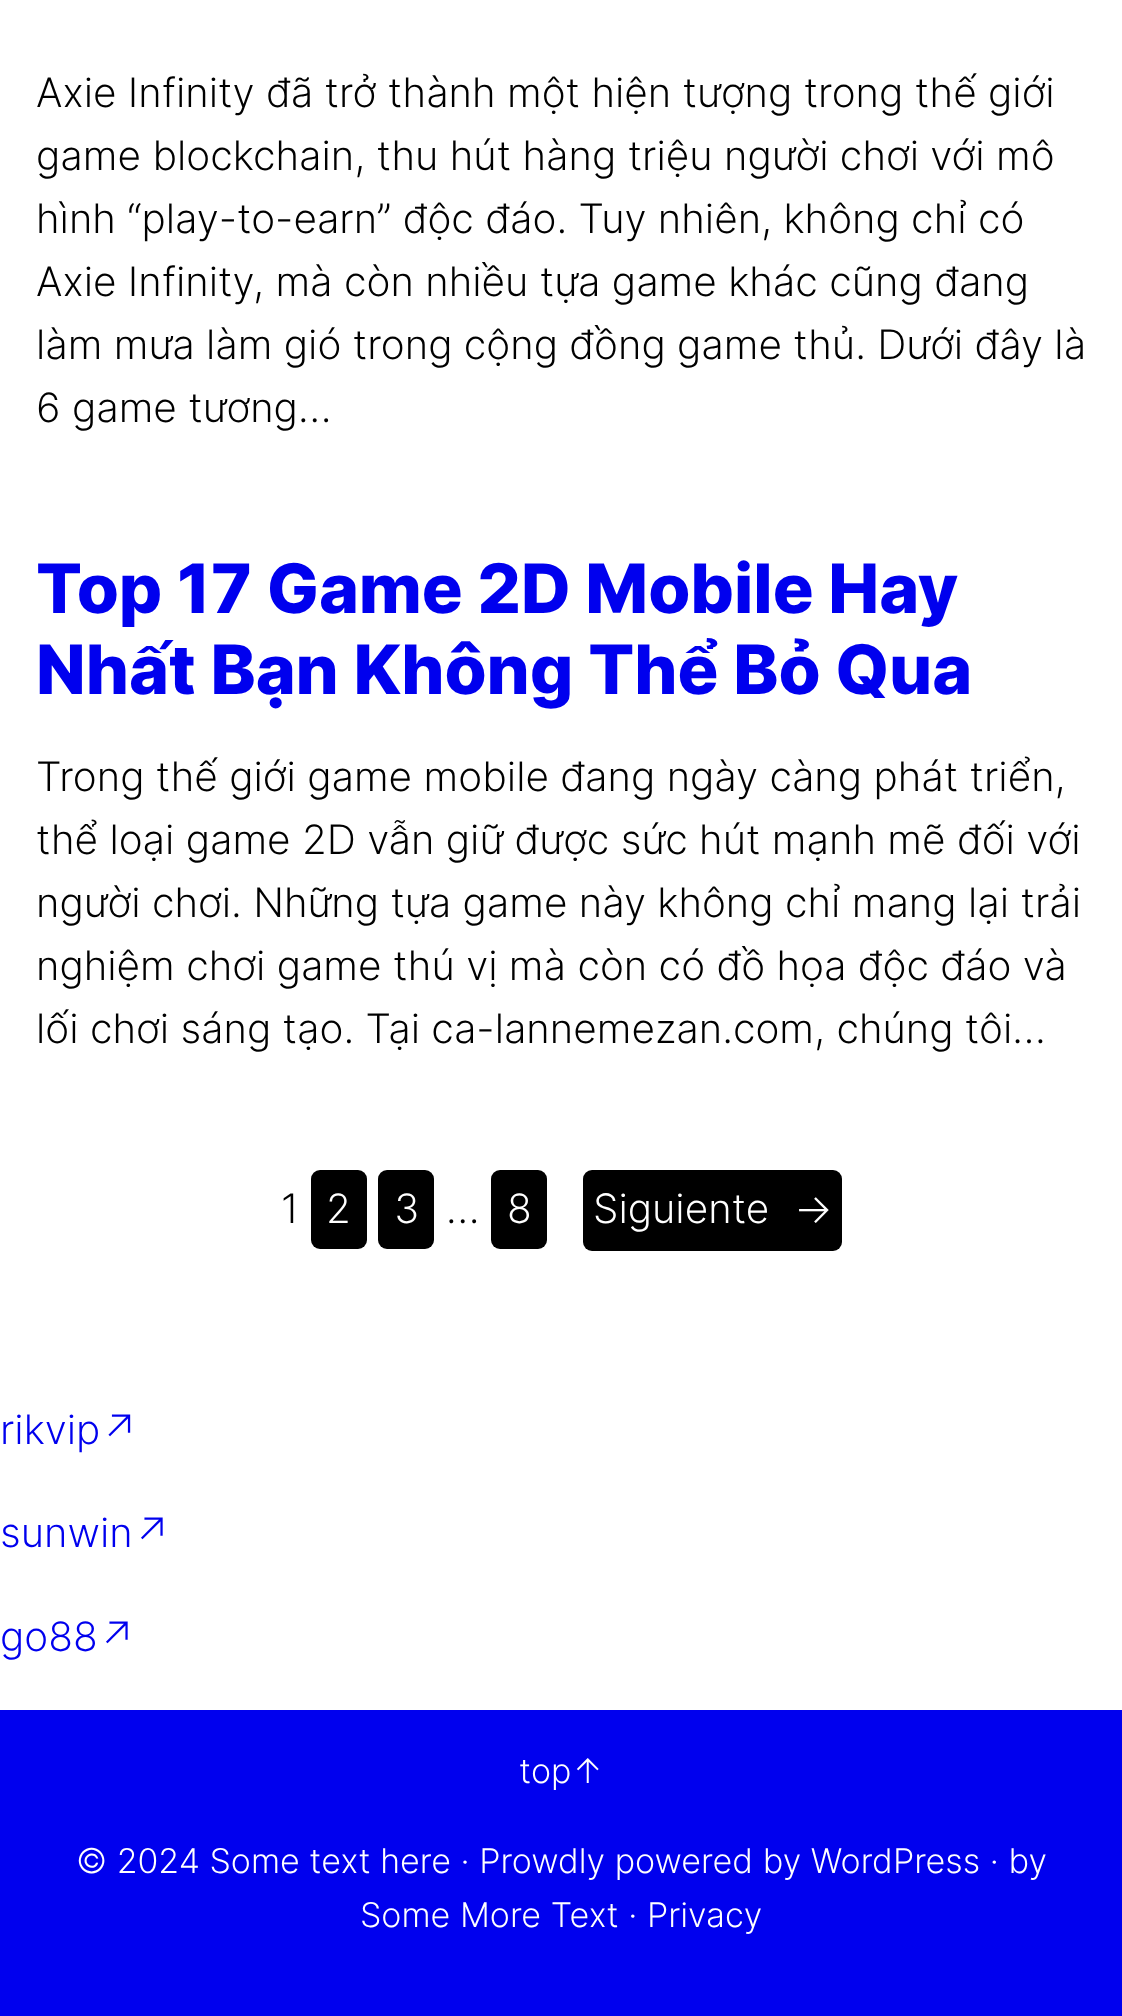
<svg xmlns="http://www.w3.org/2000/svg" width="1122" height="2016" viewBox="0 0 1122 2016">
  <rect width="100%" height="100%" fill="rgb(255,255,255)"/>
  <g font-family="Inter" font-size="40.5" font-weight="300" fill="rgb(0,0,0)">
    <text>
      <tspan x="36" y="107">Axie Infinity đã trở thành một hiện tượng trong thế giới</tspan>
      <tspan x="36" y="170">game blockchain, thu hút hàng triệu người chơi với mô</tspan>
      <tspan x="36" y="233">hình “play-to-earn” độc đáo. Tuy nhiên, không chỉ có</tspan>
      <tspan x="36" y="296">Axie Infinity, mà còn nhiều tựa game khác cũng đang</tspan>
      <tspan x="36" y="359">làm mưa làm gió trong cộng đồng game thủ. Dưới đây là</tspan>
      <tspan x="36" y="422">6 game tương…</tspan>
    </text>
  </g>
  <g font-family="Inter" font-size="68.1" font-weight="800" fill="rgb(0,0,238)">
    <text>
      <tspan x="36" y="613">Top 17 Game 2D Mobile Hay</tspan>
      <tspan x="36" y="694">Nhất Bạn Không Thể Bỏ Qua</tspan>
    </text>
  </g>
  <g font-family="Inter" font-size="40.5" font-weight="300" fill="rgb(0,0,0)">
    <text>
      <tspan x="36" y="791">Trong thế giới game mobile đang ngày càng phát triển,</tspan>
      <tspan x="36" y="854">thể loại game 2D vẫn giữ được sức hút mạnh mẽ đối với</tspan>
      <tspan x="36" y="917">người chơi. Những tựa game này không chỉ mang lại trải</tspan>
      <tspan x="36" y="980">nghiệm chơi game thú vị mà còn có đồ họa độc đáo và</tspan>
      <tspan x="36" y="1043">lối chơi sáng tạo. Tại ca-lannemezan.com, chúng tôi…</tspan>
    </text>
    <text x="281" y="1223">1</text>
  </g>
  <rect x="311" y="1170" width="56" height="79" rx="9" fill="rgb(0,0,0)"/>
  <text x="326" y="1223" font-family="Inter" font-size="40.5" font-weight="300" fill="rgb(255,255,255)">2</text>
  <rect x="378" y="1170" width="56" height="79" rx="9" fill="rgb(0,0,0)"/>
  <text x="394" y="1223" font-family="Inter" font-size="40.5" font-weight="300" fill="rgb(255,255,255)">3</text>
  <text x="446" y="1223" font-family="Inter" font-size="40.5" font-weight="300" fill="rgb(0,0,0)">…</text>
  <rect x="491" y="1170" width="56" height="79" rx="9" fill="rgb(0,0,0)"/>
  <text x="507" y="1223" font-family="Inter" font-size="40.5" font-weight="300" fill="rgb(255,255,255)">8</text>
  <rect x="583" y="1170" width="259" height="81" rx="9" fill="rgb(0,0,0)"/>
  <g font-family="Inter" font-size="40.5" font-weight="300" fill="rgb(255,255,255)">
    <text x="593" y="1223">Siguiente</text>
    <text x="794" y="1223">→</text>
  </g>
  <g font-family="Inter" font-size="40.5" font-weight="300" fill="rgb(0,0,238)">
    <text x="0" y="1444">rikvip↗</text>
    <text x="0" y="1547">sunwin↗</text>
    <text x="0" y="1651">go88↗</text>
  </g>
  <rect x="0" y="1710" width="1122" height="306" fill="rgb(0,0,238)"/>
  <g font-family="Inter" font-size="34.05" font-weight="300" fill="rgb(255,255,255)">
    <text x="519" y="1783">top↑</text>
    <text x="76" y="1873">© 2024 Some text here · Prowdly powered by WordPress · by</text>
    <text x="360" y="1927">Some More Text · Privacy</text>
  </g>
</svg>
